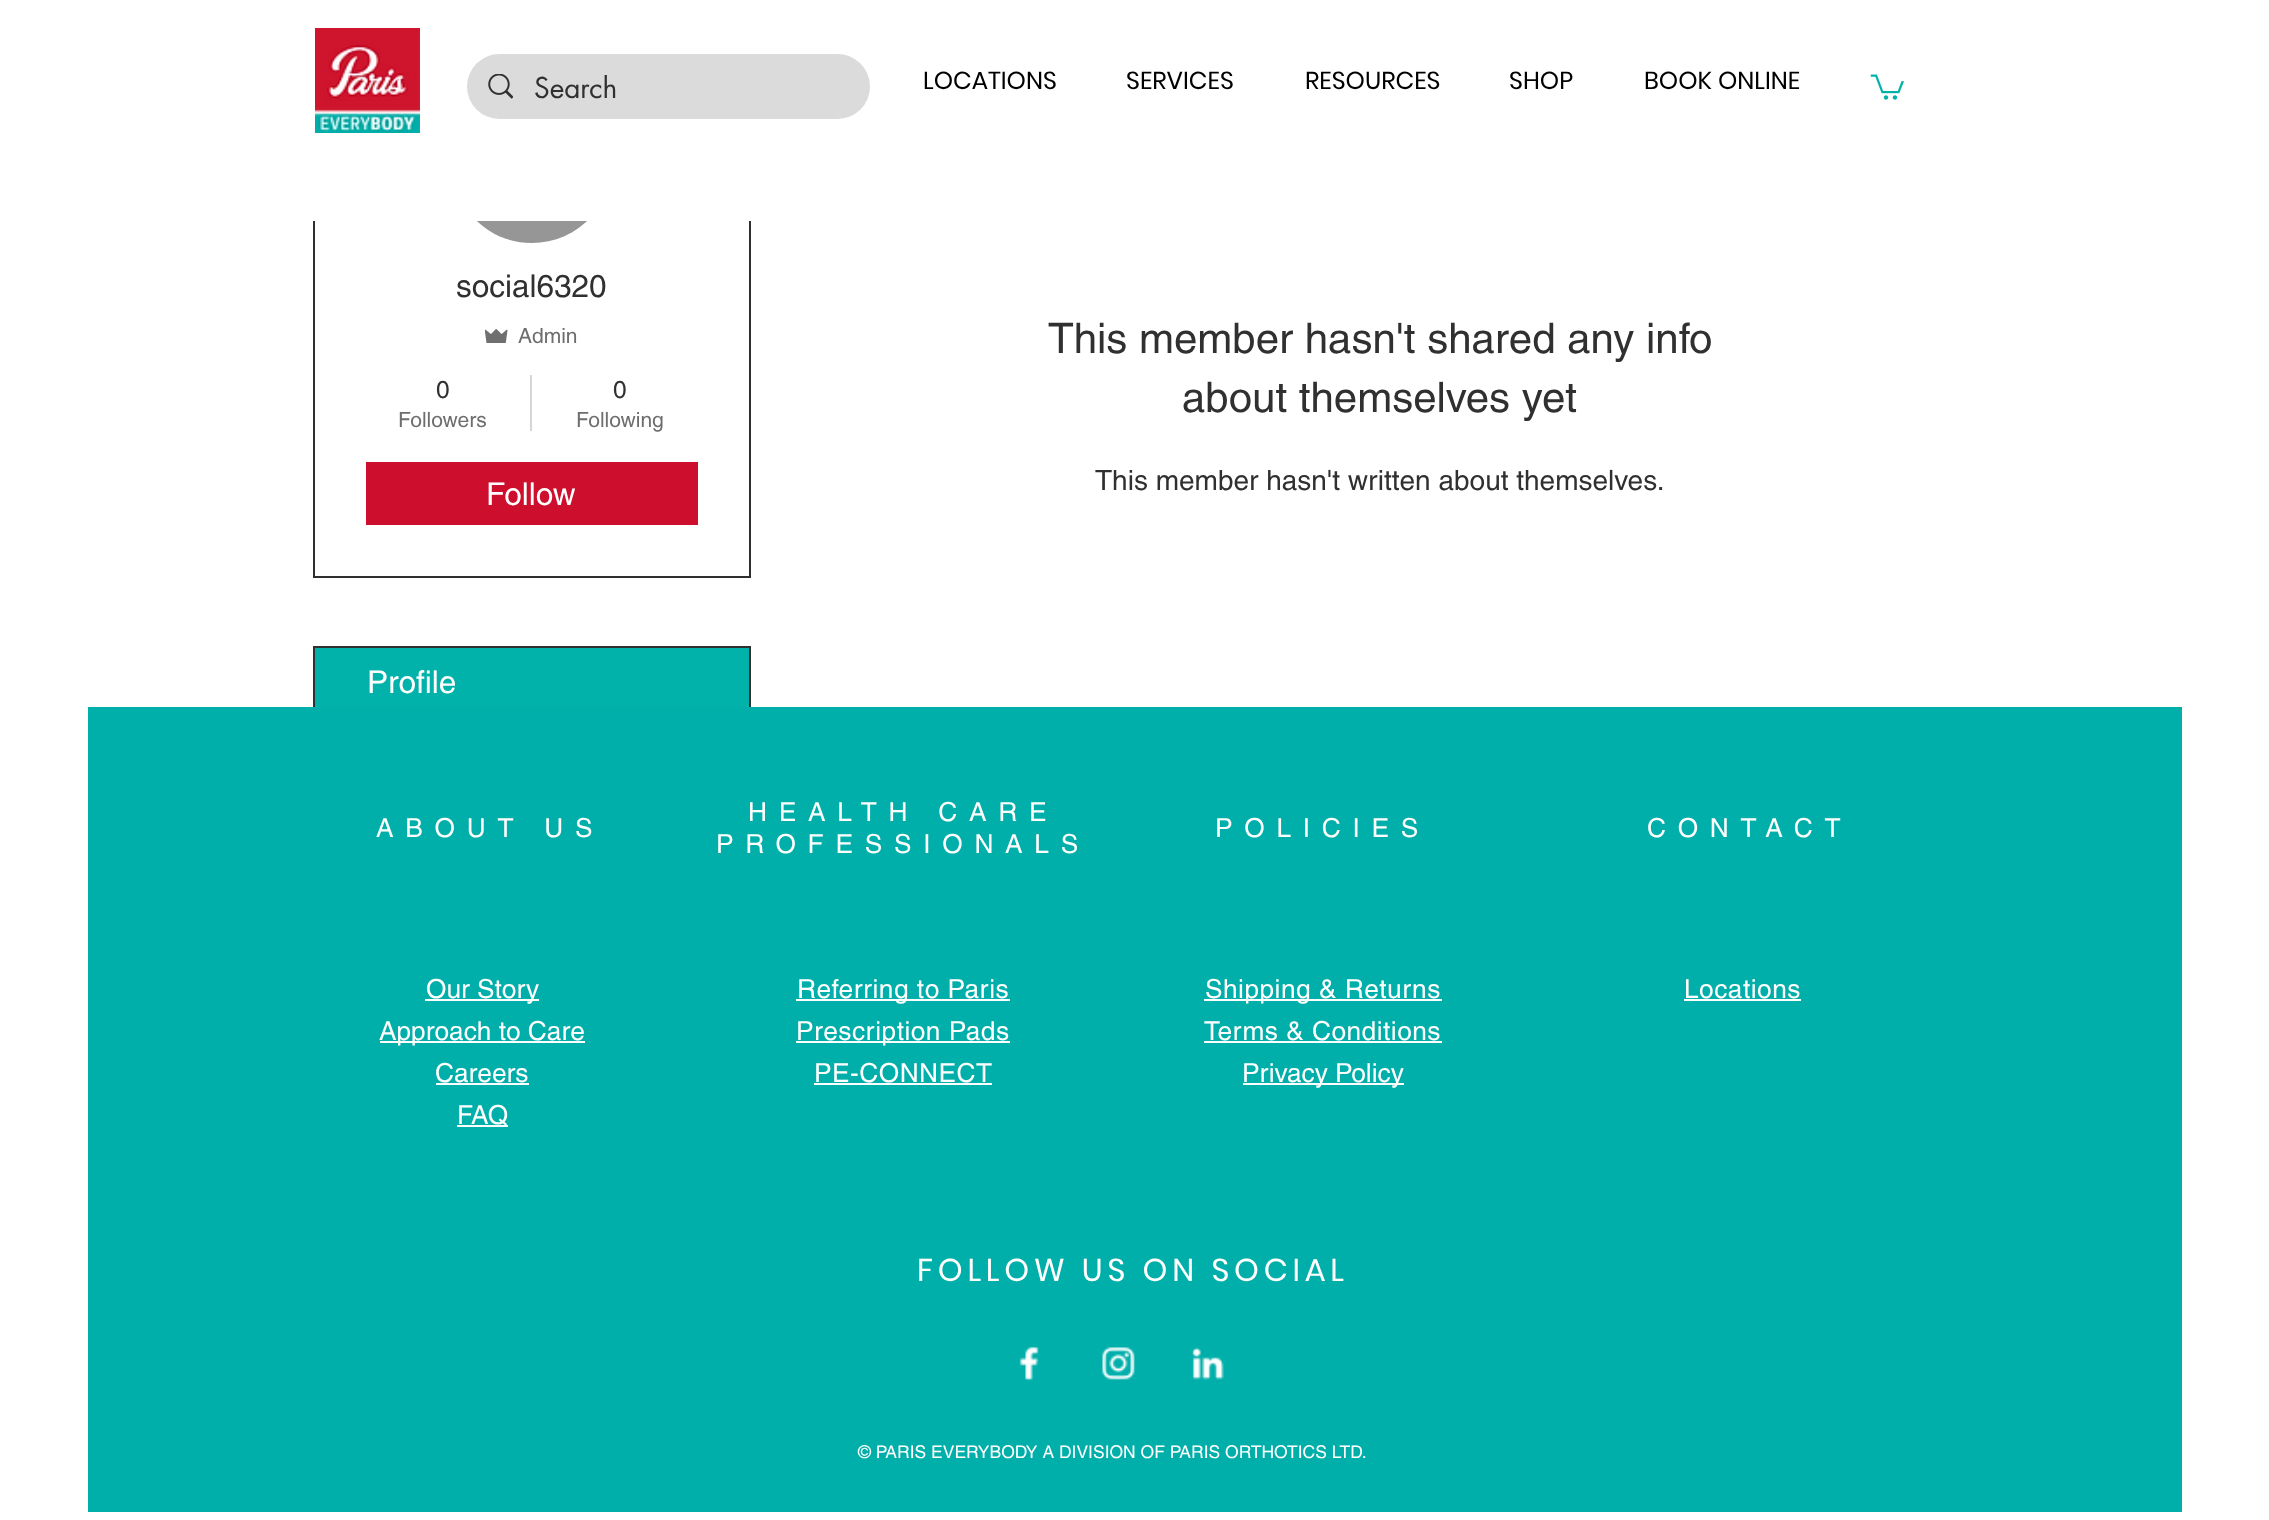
<svg xmlns="http://www.w3.org/2000/svg" width="2269" height="1520" viewBox="0 0 2269 1520">
  <rect width="100%" height="100%" fill="rgb(255,255,255)"/>
  <rect x="314" y="34" width="436" height="543" fill="none" stroke="rgb(47,47,48)" stroke-width="2"/>
  <path d="M532 243C554 243 576 234 592 216C564 172 500 172 472 216C487 233 508 243 532 243Z" fill="rgb(150,150,150)"/>
  <rect x="313" y="33" width="438" height="188" fill="rgb(255,255,255)"/>
  <image x="315" y="28" width="105" height="105" href="pic1.png"/>
  <rect x="467" y="54" width="403" height="65" rx="32.5" fill="rgb(219,219,219)"/>
  <image x="488" y="74" width="25" height="25" href="pic2.png"/>
  <text x="534" y="98" font-family="futura" font-size="28" fill="rgb(48,48,48)">Search</text>
  <g font-family="Poppins" font-size="24.5" fill="rgb(0,0,0)">
    <text x="923" y="89">LOCATIONS</text>
    <text x="1126" y="89">SERVICES</text>
    <text x="1305" y="89">RESOURCES</text>
    <text x="1509" y="89">SHOP</text>
    <text x="1644" y="89">BOOK ONLINE</text>
  </g>
  <image x="1870" y="74" width="34" height="26" href="pic3.png"/>
  <text x="456" y="297" font-family="helvetica" font-size="31.5" fill="rgb(48,48,48)">social6320</text>
  <image x="485" y="329" width="23" height="14" href="pic4.png"/>
  <text x="518" y="343" font-family="helvetica" font-size="21" fill="rgb(110,110,110)">Admin</text>
  <text x="436" y="398" font-family="helvetica" font-size="24.5" fill="rgb(48,48,48)">0</text>
  <text x="398" y="427" font-family="helvetica" font-size="21" fill="rgb(110,110,110)">Followers</text>
  <rect x="530" y="375" width="2" height="56" fill="rgb(214,214,214)"/>
  <text x="613" y="398" font-family="helvetica" font-size="24.5" fill="rgb(48,48,48)">0</text>
  <text x="576" y="427" font-family="helvetica" font-size="21" fill="rgb(110,110,110)">Following</text>
  <rect x="366" y="462" width="332" height="63" fill="rgb(206,14,45)"/>
  <text x="486" y="505" font-family="helvetica" font-size="31.5" fill="rgb(255,255,255)">Follow</text>
  <rect x="314" y="647" width="436" height="71" fill="none" stroke="rgb(48,48,48)" stroke-width="2"/>
  <rect x="315" y="648" width="434" height="59" fill="rgb(0,178,169)"/>
  <text x="367" y="693" font-family="helvetica" font-size="31.5" fill="rgb(255,255,255)">Profile</text>
  <g font-family="helvetica" font-size="42" fill="rgb(48,48,48)">
    <text x="1048" y="353">This member hasn't shared any info</text>
    <text x="1182" y="412">about themselves yet</text>
  </g>
  <text x="1095" y="490" font-family="helvetica" font-size="28" fill="rgb(48,48,48)">This member hasn't written about themselves.</text>
  <rect x="88" y="707" width="2094" height="805" fill="rgb(0,175,170)"/>
  <g font-family="helvetica" font-size="26.25" letter-spacing="11.75" fill="rgb(255,255,255)">
    <text x="376" y="837">ABOUT US</text>
    <text x="748" y="821">HEALTH CARE</text>
    <text x="716" y="853">PROFESSIONALS</text>
    <text x="1215" y="837">POLICIES</text>
    <text x="1647" y="837">CONTACT</text>
  </g>
  <rect x="425" y="999" width="114" height="2" fill="rgb(255,255,255)"/>
  <text x="426" y="998" font-family="helvetica" font-size="26.25" fill="rgb(255,255,255)">Our Story</text>
  <rect x="380" y="1041" width="205" height="2" fill="rgb(255,255,255)"/>
  <g font-family="helvetica" font-size="26.25" fill="rgb(255,255,255)">
    <text x="379" y="1040">Approach to Care</text>
    <text x="435" y="1082">Careers</text>
  </g>
  <rect x="436" y="1083" width="93" height="2" fill="rgb(255,255,255)"/>
  <rect x="457" y="1125" width="51" height="2" fill="rgb(255,255,255)"/>
  <text x="457" y="1124" font-family="helvetica" font-size="26.25" fill="rgb(255,255,255)">FAQ</text>
  <rect x="796" y="999" width="214" height="2" fill="rgb(255,255,255)"/>
  <text x="797" y="998" font-family="helvetica" font-size="26.25" letter-spacing="0.5" fill="rgb(255,255,255)">Referring to Paris</text>
  <rect x="796" y="1041" width="214" height="2" fill="rgb(255,255,255)"/>
  <g font-family="helvetica" font-size="26.25" letter-spacing="0.5" fill="rgb(255,255,255)">
    <text x="796" y="1040">Prescription Pads</text>
    <text x="814" y="1082">PE-CONNECT</text>
  </g>
  <rect x="814" y="1083" width="178" height="2" fill="rgb(255,255,255)"/>
  <rect x="1204" y="999" width="238" height="2" fill="rgb(255,255,255)"/>
  <g font-family="helvetica" font-size="26.25" letter-spacing="0.5" fill="rgb(255,255,255)">
    <text x="1205" y="998">Shipping &amp; Returns</text>
    <text x="1204" y="1040">Terms &amp; Conditions</text>
  </g>
  <rect x="1204" y="1041" width="238" height="2" fill="rgb(255,255,255)"/>
  <rect x="1243" y="1083" width="161" height="2" fill="rgb(255,255,255)"/>
  <text x="1242" y="1082" font-family="helvetica" font-size="26.25" fill="rgb(255,255,255)">Privacy Policy</text>
  <text x="1684" y="998" font-family="helvetica" font-size="26.25" letter-spacing="0.5" fill="rgb(255,255,255)">Locations</text>
  <rect x="1684" y="999" width="117" height="2" fill="rgb(255,255,255)"/>
  <text x="917" y="1281" font-family="Poppins" font-size="31.5" letter-spacing="4.75" fill="rgb(255,255,255)">FOLLOW US ON SOCIAL</text>
  <image x="1019" y="1346" width="20" height="35" href="pic5.png"/>
  <image x="1102" y="1347" width="33" height="33" href="pic6.png"/>
  <image x="1191" y="1347" width="33" height="33" href="pic7.png"/>
  <text x="858" y="1458" font-family="helvetica" font-size="17.5" fill="rgb(255,255,255)">© PARIS EVERYBODY A DIVISION OF PARIS ORTHOTICS LTD.</text>
</svg>
